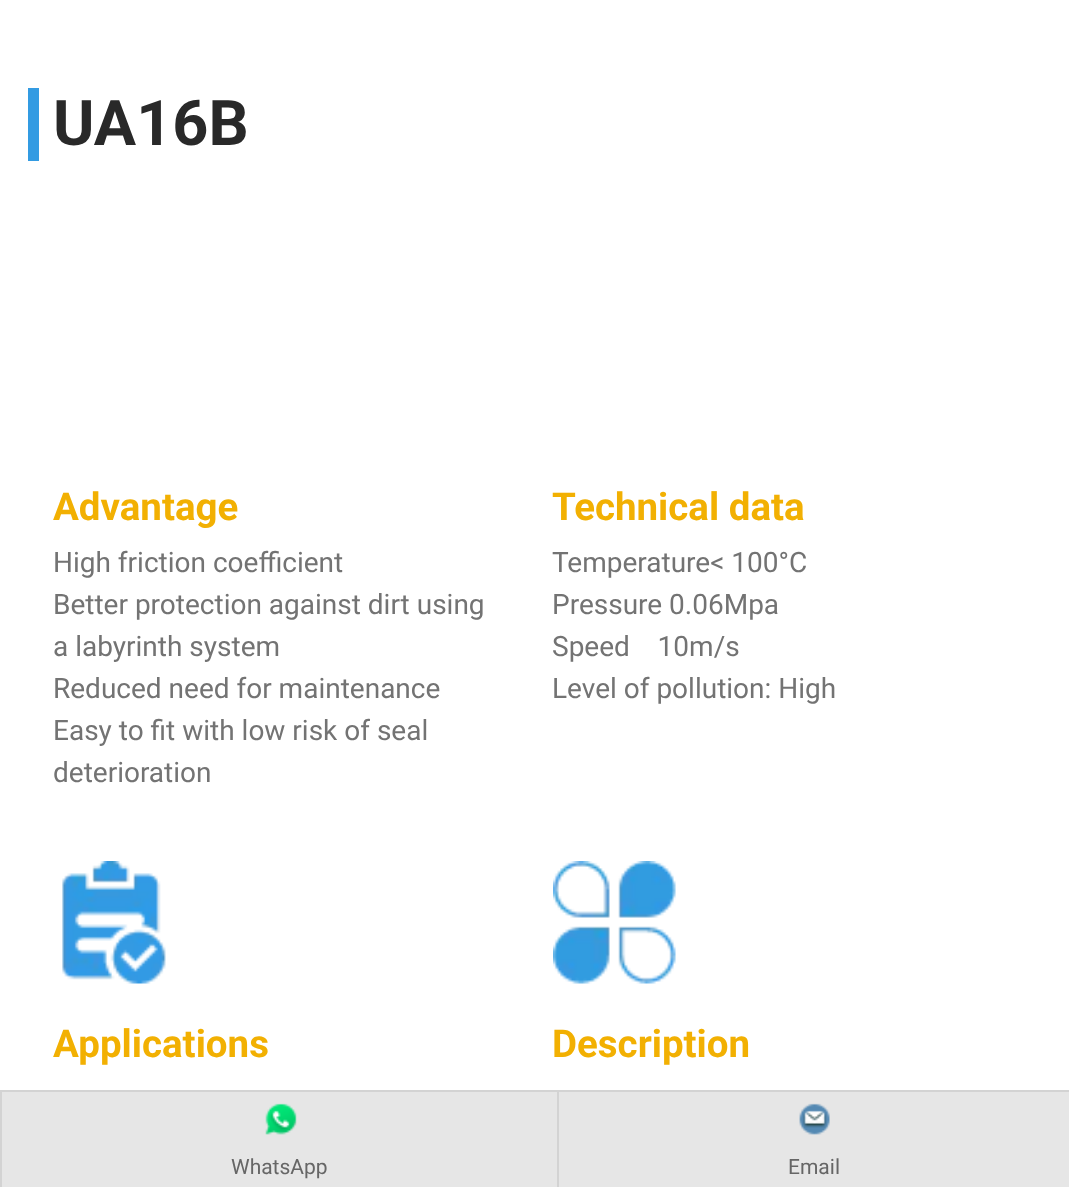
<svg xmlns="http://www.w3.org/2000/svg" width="1069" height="1187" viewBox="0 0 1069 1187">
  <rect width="100%" height="100%" fill="rgb(255,255,255)"/>
  <rect x="28" y="88" width="11" height="73" fill="rgb(51,155,226)"/>
  <text x="53" y="145" font-family="Roboto" font-size="63" font-weight="bold" fill="rgb(41,41,41)">UA16B</text>
  <text x="53" y="520" font-family="Roboto" font-size="38.5" font-weight="bold" fill="rgb(242,176,2)">Advantage</text>
  <g font-family="Roboto" font-size="28" fill="rgb(115,115,115)">
    <text>
      <tspan x="53" y="572">High friction coefficient</tspan>
      <tspan x="53" y="614">Better protection against dirt using</tspan>
      <tspan x="53" y="656">a labyrinth system</tspan>
      <tspan x="53" y="698">Reduced need for maintenance</tspan>
      <tspan x="53" y="740">Easy to fit with low risk of seal</tspan>
      <tspan x="53" y="782">deterioration</tspan>
    </text>
  </g>
  <text x="552" y="520" font-family="Roboto" font-size="38.5" font-weight="bold" fill="rgb(242,176,2)">Technical data</text>
  <g font-family="Roboto" font-size="28" fill="rgb(115,115,115)">
    <text xml:space="preserve"><tspan x="552" y="572">Temperature&lt; 100°C</tspan><tspan x="552" y="614">Pressure 0.06Mpa</tspan><tspan x="552" y="656">Speed    10m/s</tspan><tspan x="552" y="698">Level of pollution: High</tspan></text>
  </g>
  <image x="62" y="861" width="104" height="123" href="pic1.png"/>
  <text x="53" y="1057" font-family="Roboto" font-size="38.5" font-weight="bold" fill="rgb(242,176,2)">Applications</text>
  <image x="553" y="861" width="123" height="123" href="pic2.png"/>
  <text x="552" y="1057" font-family="Roboto" font-size="38.5" font-weight="bold" fill="rgb(242,176,2)">Description</text>
  <rect x="2" y="1092" width="1067" height="95" fill="rgba(221,221,221,0.75)"/>
  <rect x="0" y="1090" width="1069" height="2" fill="rgb(211,211,211)"/>
  <rect x="0" y="1092" width="2" height="95" fill="rgb(211,211,211)"/>
  <image x="265" y="1103" width="32" height="32" href="pic3.png"/>
  <text x="231" y="1174" font-family="Roboto" font-size="21" fill="rgb(102,102,102)">WhatsApp</text>
  <rect x="557" y="1092" width="2" height="95" fill="rgb(211,211,211)"/>
  <image x="799" y="1103" width="31" height="32" href="pic4.png"/>
  <text x="788" y="1174" font-family="Roboto" font-size="21" fill="rgb(102,102,102)">Email</text>
</svg>
